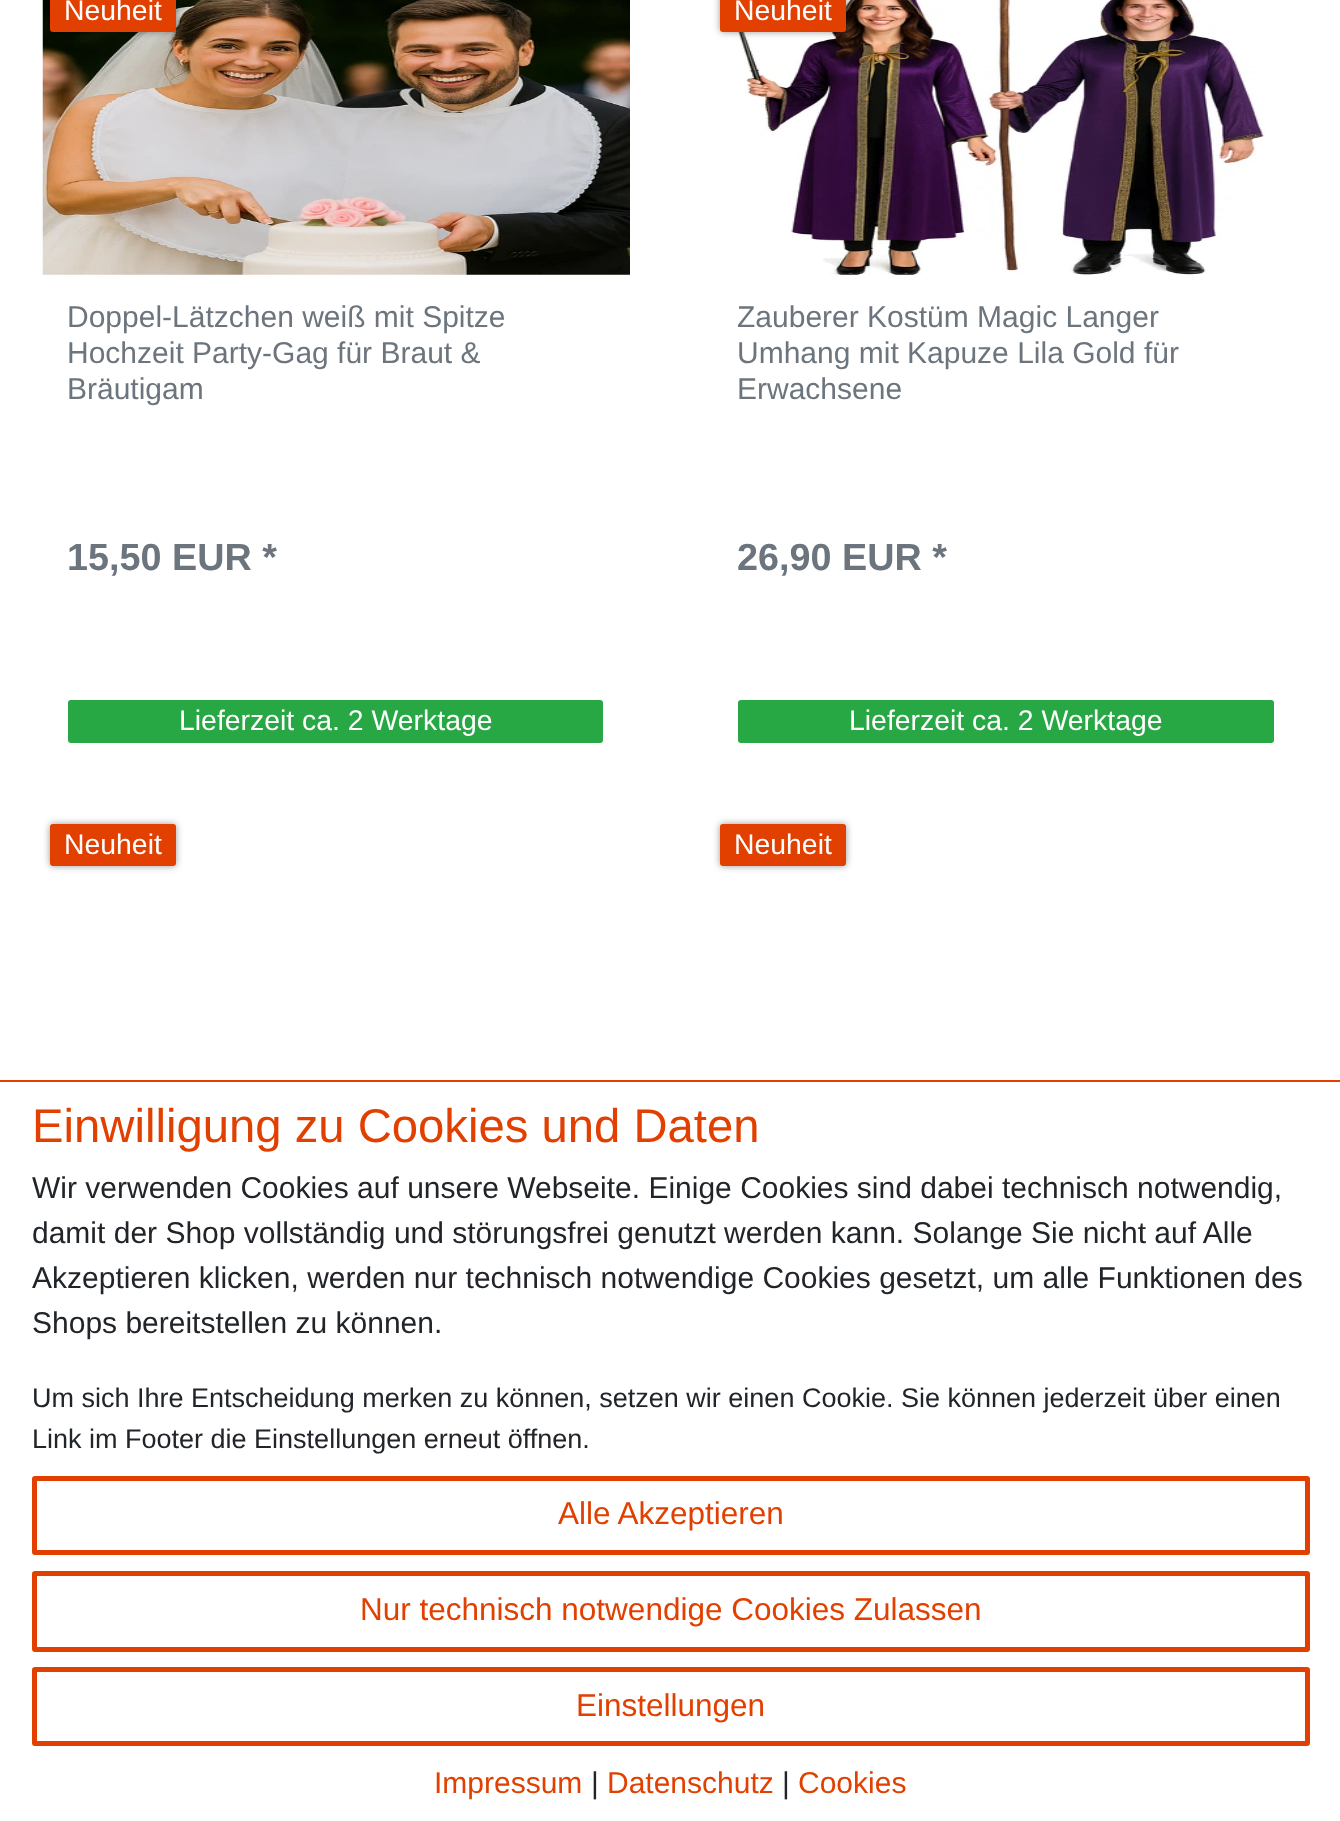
<svg xmlns="http://www.w3.org/2000/svg" width="1340" height="1821" viewBox="0 0 1340 1821">
  <rect width="100%" height="100%" fill="rgb(255,255,255)"/>
  <image x="42" y="0" width="588" height="275" href="pic1.png"/>
  <rect x="50" y="-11" width="126" height="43" rx="3" fill="rgba(0,0,0,0.4)" filter="blur(3.5px)"/>
  <rect x="50" y="-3" width="126" height="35" rx="3" fill="rgb(225,64,0)"/>
  <text x="64" y="20" font-family="Liberation Sans" font-size="28.4" fill="rgb(255,255,255)">Neuheit</text>
  <g font-family="Liberation Sans" font-size="30" fill="rgb(108,117,125)">
    <text>
      <tspan x="67" y="327">Doppel-Lätzchen weiß mit Spitze</tspan>
      <tspan x="67" y="363">Hochzeit Party-Gag für Braut &amp;</tspan>
      <tspan x="67" y="399">Bräutigam</tspan>
    </text>
  </g>
  <text x="67" y="570" font-family="Liberation Sans" font-size="37.75" font-weight="bold" fill="rgb(108,117,125)">15,50 EUR *</text>
  <rect x="68" y="700" width="535" height="43" rx="3" fill="rgb(40,167,69)"/>
  <text x="179" y="730" font-family="Liberation Sans" font-size="28.4" fill="rgb(255,255,255)">Lieferzeit ca. 2 Werktage</text>
  <image x="729" y="0" width="537" height="275" href="pic2.png"/>
  <rect x="720" y="-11" width="126" height="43" rx="3" fill="rgba(0,0,0,0.4)" filter="blur(3.5px)"/>
  <rect x="720" y="-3" width="126" height="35" rx="3" fill="rgb(225,64,0)"/>
  <text x="734" y="20" font-family="Liberation Sans" font-size="28.4" fill="rgb(255,255,255)">Neuheit</text>
  <g font-family="Liberation Sans" font-size="30" fill="rgb(108,117,125)">
    <text>
      <tspan x="737" y="327">Zauberer Kostüm Magic Langer</tspan>
      <tspan x="737" y="363">Umhang mit Kapuze Lila Gold für</tspan>
      <tspan x="737" y="399">Erwachsene</tspan>
    </text>
  </g>
  <text x="737" y="570" font-family="Liberation Sans" font-size="37.75" font-weight="bold" fill="rgb(108,117,125)">26,90 EUR *</text>
  <rect x="738" y="700" width="536" height="43" rx="3" fill="rgb(40,167,69)"/>
  <text x="849" y="730" font-family="Liberation Sans" font-size="28.4" fill="rgb(255,255,255)">Lieferzeit ca. 2 Werktage</text>
  <rect x="50" y="824" width="126" height="42" rx="3" fill="rgba(0,0,0,0.4)" filter="blur(3.5px)"/>
  <rect x="50" y="824" width="126" height="42" rx="3" fill="rgb(225,64,0)"/>
  <text x="64" y="854" font-family="Liberation Sans" font-size="28.4" fill="rgb(255,255,255)">Neuheit</text>
  <rect x="720" y="824" width="126" height="42" rx="3" fill="rgba(0,0,0,0.4)" filter="blur(3.5px)"/>
  <rect x="720" y="824" width="126" height="42" rx="3" fill="rgb(225,64,0)"/>
  <text x="734" y="854" font-family="Liberation Sans" font-size="28.4" fill="rgb(255,255,255)">Neuheit</text>
  <rect x="0" y="1080" width="1340" height="2" fill="rgb(225,64,0)"/>
  <text x="32" y="1142" font-family="Liberation Sans" font-size="47.25" fill="rgb(225,64,0)">Einwilligung zu Cookies und Daten</text>
  <g font-family="Liberation Sans" font-size="30" fill="rgb(33,37,41)">
    <text>
      <tspan x="32" y="1198">Wir verwenden Cookies auf unsere Webseite. Einige Cookies sind dabei technisch notwendig,</tspan>
      <tspan x="32" y="1243">damit der Shop vollständig und störungsfrei genutzt werden kann. Solange Sie nicht auf Alle</tspan>
      <tspan x="32" y="1288">Akzeptieren klicken, werden nur technisch notwendige Cookies gesetzt, um alle Funktionen des</tspan>
      <tspan x="32" y="1333">Shops bereitstellen zu können.</tspan>
    </text>
  </g>
  <g font-family="Liberation Sans" font-size="27" fill="rgb(33,37,41)">
    <text>
      <tspan x="32" y="1407">Um sich Ihre Entscheidung merken zu können, setzen wir einen Cookie. Sie können jederzeit über einen</tspan>
      <tspan x="32" y="1448">Link im Footer die Einstellungen erneut öffnen.</tspan>
    </text>
  </g>
  <rect x="34.5" y="1478.5" width="1273" height="74" rx="0.5" fill="none" stroke="rgb(225,64,0)" stroke-width="5"/>
  <text x="558" y="1524" font-family="Liberation Sans" font-size="31.5" fill="rgb(225,64,0)">Alle Akzeptieren</text>
  <rect x="34.5" y="1573.5" width="1273" height="76" rx="0.5" fill="none" stroke="rgb(225,64,0)" stroke-width="5"/>
  <text x="360" y="1620" font-family="Liberation Sans" font-size="31.5" fill="rgb(225,64,0)">Nur technisch notwendige Cookies Zulassen</text>
  <rect x="34.5" y="1669.5" width="1273" height="74" rx="0.5" fill="none" stroke="rgb(225,64,0)" stroke-width="5"/>
  <text x="576" y="1716" font-family="Liberation Sans" font-size="31.5" fill="rgb(225,64,0)">Einstellungen</text>
  <text x="434" y="1793" font-family="Liberation Sans" font-size="30" fill="rgb(225,64,0)">Impressum</text>
  <text x="591" y="1793" font-family="Liberation Sans" font-size="30" fill="rgb(33,37,41)">|</text>
  <text x="607" y="1793" font-family="Liberation Sans" font-size="30" fill="rgb(225,64,0)">Datenschutz</text>
  <text x="782" y="1793" font-family="Liberation Sans" font-size="30" fill="rgb(33,37,41)">|</text>
  <text x="798" y="1793" font-family="Liberation Sans" font-size="30" fill="rgb(225,64,0)">Cookies</text>
</svg>
